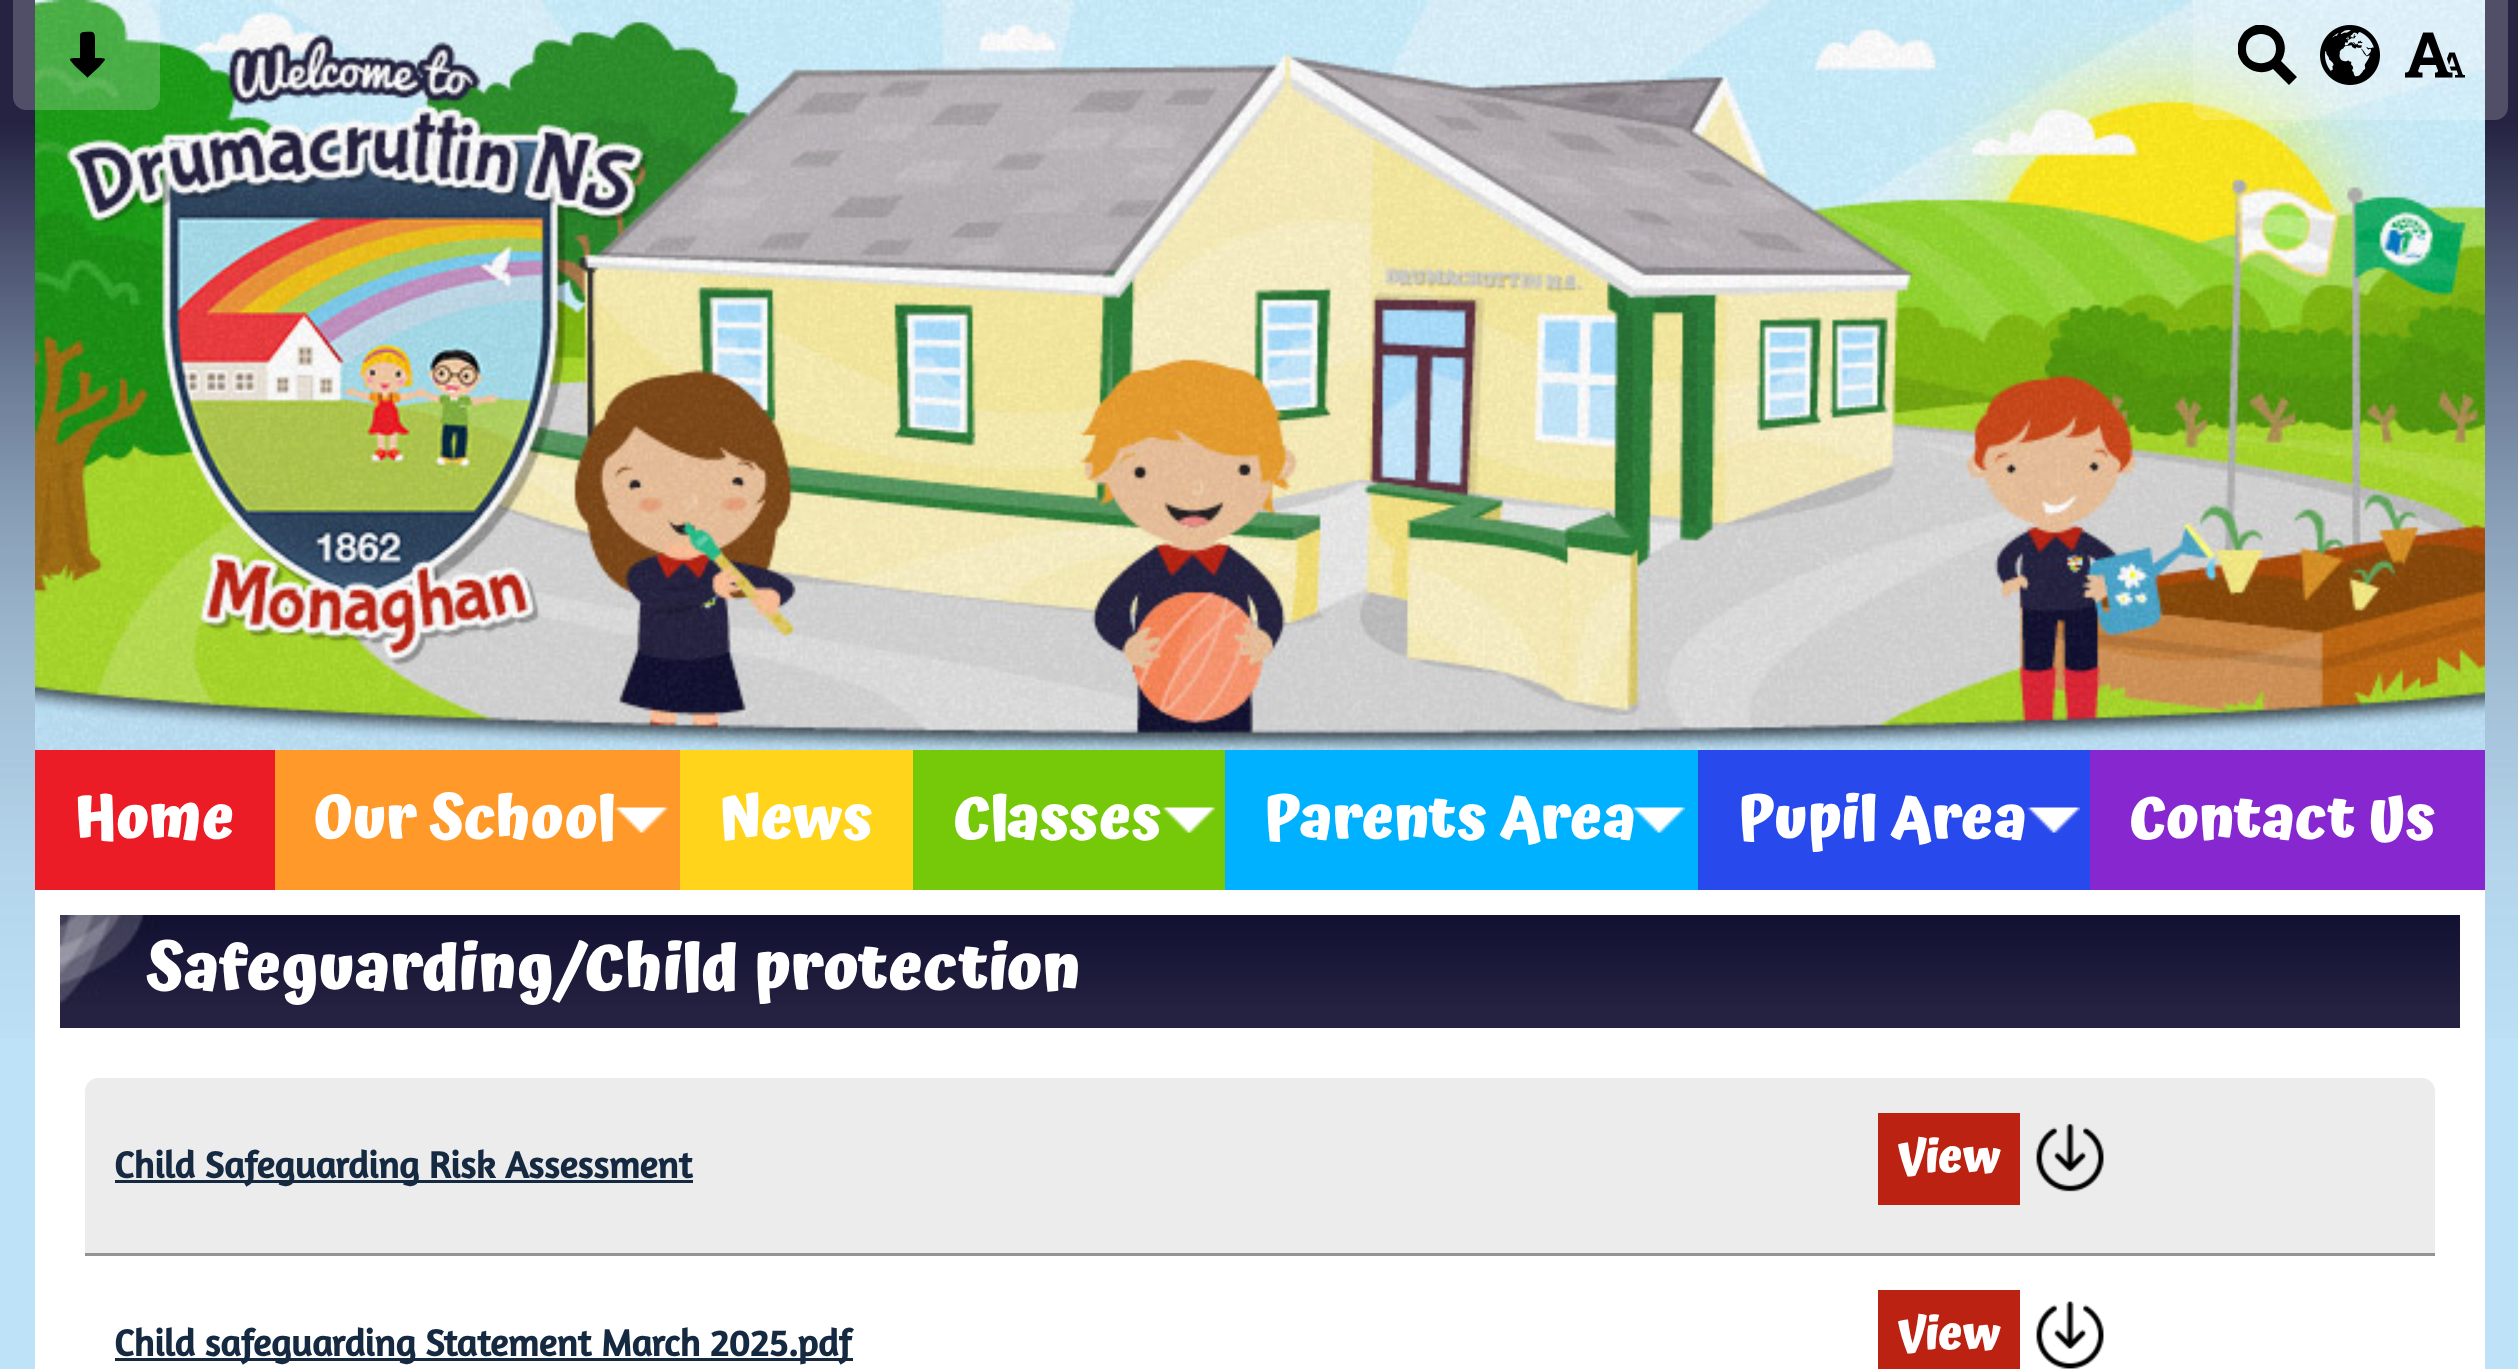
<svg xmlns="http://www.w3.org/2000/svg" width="2518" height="1369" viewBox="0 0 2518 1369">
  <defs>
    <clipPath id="clip1"><rect x="2238" y="25" width="60" height="60"/></clipPath>
  </defs>
  <rect width="100%" height="100%" fill="rgb(190,226,248)"/>
  <image x="0" y="0" width="2518" height="1039" href="pic1.png"/>
  <image x="35" y="0" width="2450" height="750" href="pic4.png"/>
  <path d="M13 0H160V97C160 104 154 110 147 110H26C19 110 13 104 13 97Z" fill="rgba(255,255,255,0.2)"/>
  <path d="M80 58C67 58 68 58 76 67L87 77L88 78V77L99 67C107 58 108 58 95 58V39C95 30 92 32 84 32C82 32 80 33 80 35Z" fill="rgb(0,0,0)"/>
  <path d="M2193 0H2508V107C2508 114 2502 120 2495 120H2206C2199 120 2193 114 2193 107Z" fill="rgba(255,255,255,0.2)"/>
  <g clip-path="url(#clip1)">
    <path d="M2297 77L2281 61C2287 52 2286 40 2278 32C2272 26 2264 24 2256 25C2250 27 2245 30 2242 35C2227 57 2252 81 2273 69L2289 85ZM2246 49C2246 29 2276 29 2276 49C2276 68 2246 68 2246 49Z" fill="rgb(0,0,0)"/>
  </g>
  <image x="2320" y="25" width="60" height="60" href="pic2.png"/>
  <image x="2405" y="32" width="60" height="46" href="pic3.png"/>
  <rect x="2090" y="750" width="395" height="140" fill="rgb(135,39,207)"/>
  <rect x="35" y="750" width="240" height="140" fill="rgb(235,28,38)"/>
  <text x="75" y="838" font-family="Atma" font-size="60" font-weight="bold" fill="rgb(255,255,255)">Home</text>
  <rect x="275" y="750" width="405" height="140" fill="rgb(255,153,42)"/>
  <image x="615" y="807" width="53" height="26" href="pic5.png"/>
  <text x="314" y="838" font-family="Atma" font-size="60" font-weight="bold" fill="rgb(255,255,255)">Our School</text>
  <rect x="680" y="750" width="233" height="140" fill="rgb(255,212,26)"/>
  <text x="719" y="838" font-family="Atma" font-size="60" font-weight="bold" fill="rgb(255,255,255)">News</text>
  <rect x="913" y="750" width="312" height="140" fill="rgb(118,201,9)"/>
  <image x="1162" y="807" width="53" height="26" href="pic6.png"/>
  <text x="953" y="838" font-family="Atma" font-size="60" font-weight="bold" fill="rgb(255,255,255)">Classes</text>
  <rect x="1225" y="750" width="473" height="140" fill="rgb(0,177,255)"/>
  <image x="1632" y="807" width="53" height="26" href="pic7.png"/>
  <text x="1264" y="838" font-family="Atma" font-size="60" font-weight="bold" fill="rgb(255,255,255)">Parents Area</text>
  <rect x="1698" y="750" width="392" height="140" fill="rgb(40,73,236)"/>
  <image x="2027" y="807" width="53" height="26" href="pic8.png"/>
  <g font-family="Atma" font-size="60" font-weight="bold" fill="rgb(255,255,255)">
    <text x="1738" y="838">Pupil Area</text>
    <text x="2129" y="838">Contact Us</text>
  </g>
  <rect x="35" y="890" width="2450" height="479" fill="rgb(255,255,255)"/>
  <rect x="60" y="1005" width="2400" height="23" fill="rgb(37,34,65)"/>
  <image x="60" y="915" width="2400" height="90" href="pic9.png"/>
  <text x="147" y="989" font-family="Atma" font-size="64.6" font-weight="bold" fill="rgb(255,255,255)">Safeguarding/Child protection</text>
  <path d="M98 1078H2422C2429 1078 2435 1084 2435 1091V1253H85V1091C85 1084 91 1078 98 1078Z" fill="rgb(236,236,236)"/>
  <rect x="85" y="1253" width="2350" height="3" fill="rgb(148,148,148)"/>
  <rect x="115" y="1180" width="578" height="3" fill="rgb(21,41,65)"/>
  <text x="114" y="1178" font-family="Amaranth" font-size="38" font-weight="bold" fill="rgb(21,41,65)">Child Safeguarding Risk Assessment</text>
  <rect x="1878" y="1113" width="142" height="92" fill="rgb(187,34,18)"/>
  <text x="1898" y="1172" font-family="Atma" font-size="46" font-weight="bold" fill="rgb(255,255,255)">View</text>
  <image x="2036" y="1123" width="68" height="69" href="pic10.png"/>
  <rect x="115" y="1358" width="738" height="3" fill="rgb(21,41,65)"/>
  <text x="114" y="1356" font-family="Amaranth" font-size="38" font-weight="bold" fill="rgb(21,41,65)">Child safeguarding Statement March 2025.pdf</text>
  <rect x="1878" y="1290" width="142" height="79" fill="rgb(187,34,18)"/>
  <text x="1898" y="1349" font-family="Atma" font-size="46" font-weight="bold" fill="rgb(255,255,255)">View</text>
  <image x="2036" y="1301" width="68" height="68" href="pic11.png"/>
</svg>
